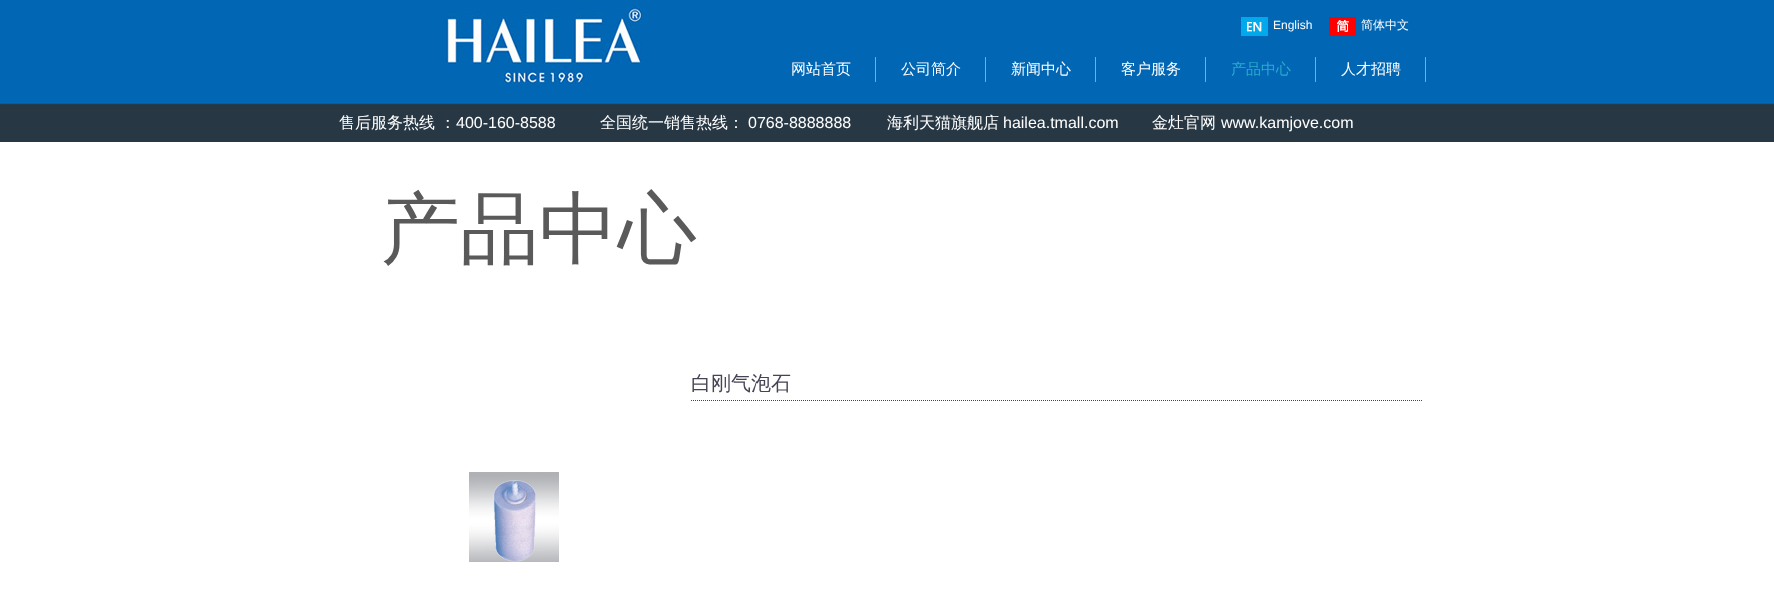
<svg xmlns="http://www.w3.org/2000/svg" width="1774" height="603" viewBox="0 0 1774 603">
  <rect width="100%" height="100%" fill="rgb(255,255,255)"/>
  <rect x="0" y="0" width="1774" height="102" fill="rgb(1,102,180)"/>
  <image x="0" y="102" width="1774" height="40" href="pic1.png"/>
  <image x="446" y="5" width="196" height="80" href="pic2.png"/>
  <image x="1241" y="17" width="27" height="19" href="pic3.png"/>
  <text x="1273" y="29" font-family="Liberation Sans" font-size="12" fill="rgb(255,255,255)">English</text>
  <image x="1329" y="17" width="27" height="19" href="pic4.png"/>
  <text x="1361" y="29" font-family="WenQuanYi Zen Hei" font-size="12" font-weight="500" fill="rgb(255,255,255)">简体中文</text>
  <image x="875" y="57" width="1" height="25" href="pic5.png"/>
  <text x="791" y="74" font-family="WenQuanYi Zen Hei" font-size="15" font-weight="500" fill="rgb(255,255,255)">网站首页</text>
  <image x="985" y="57" width="1" height="25" href="pic5.png"/>
  <text x="901" y="74" font-family="WenQuanYi Zen Hei" font-size="15" font-weight="500" fill="rgb(255,255,255)">公司简介</text>
  <image x="1095" y="57" width="1" height="25" href="pic5.png"/>
  <text x="1011" y="74" font-family="WenQuanYi Zen Hei" font-size="15" font-weight="500" fill="rgb(255,255,255)">新闻中心</text>
  <image x="1205" y="57" width="1" height="25" href="pic5.png"/>
  <text x="1121" y="74" font-family="WenQuanYi Zen Hei" font-size="15" font-weight="500" fill="rgb(255,255,255)">客户服务</text>
  <image x="1315" y="57" width="1" height="25" href="pic5.png"/>
  <text x="1231" y="74" font-family="WenQuanYi Zen Hei" font-size="15" font-weight="500" fill="rgb(43,171,207)">产品中心</text>
  <image x="1425" y="57" width="1" height="25" href="pic5.png"/>
  <text x="1341" y="74" font-family="WenQuanYi Zen Hei" font-size="15" font-weight="500" fill="rgb(255,255,255)">人才招聘</text>
  <text x="339" y="128" font-family="WenQuanYi Zen Hei" font-size="16" font-weight="500" fill="rgb(255,255,255)">售后服务热线 ：</text>
  <text x="456" y="128" font-family="Liberation Sans" font-size="16" fill="rgb(255,255,255)">400-160-8588</text>
  <text x="600" y="128" font-family="WenQuanYi Zen Hei" font-size="16" font-weight="500" fill="rgb(255,255,255)">全国统一销售热线：</text>
  <text x="748" y="128" font-family="Liberation Sans" font-size="16" fill="rgb(255,255,255)">0768-8888888</text>
  <text x="887" y="128" font-family="WenQuanYi Zen Hei" font-size="16" font-weight="500" fill="rgb(255,255,255)">海利天猫旗舰店</text>
  <text x="1003" y="128" font-family="Liberation Sans" font-size="16" fill="rgb(255,255,255)">hailea.tmall.com</text>
  <text x="1152" y="128" font-family="WenQuanYi Zen Hei" font-size="16" font-weight="500" fill="rgb(255,255,255)">金灶官网</text>
  <text x="1221" y="128" font-family="Liberation Sans" font-size="16" fill="rgb(255,255,255)">www.kamjove.com</text>
  <text x="381" y="256" font-family="WenQuanYi Zen Hei" font-size="79" font-weight="500" fill="rgb(90,90,90)">产品中心</text>
  <path d="M691 400.5H1422" fill="none" stroke="rgb(68,68,84)" stroke-dasharray="1 1"/>
  <text x="691" y="390" font-family="WenQuanYi Zen Hei" font-size="20" font-weight="500" fill="rgb(68,68,84)">白刚气泡石</text>
  <image x="469" y="472" width="90" height="90" href="pic6.png"/>
</svg>
